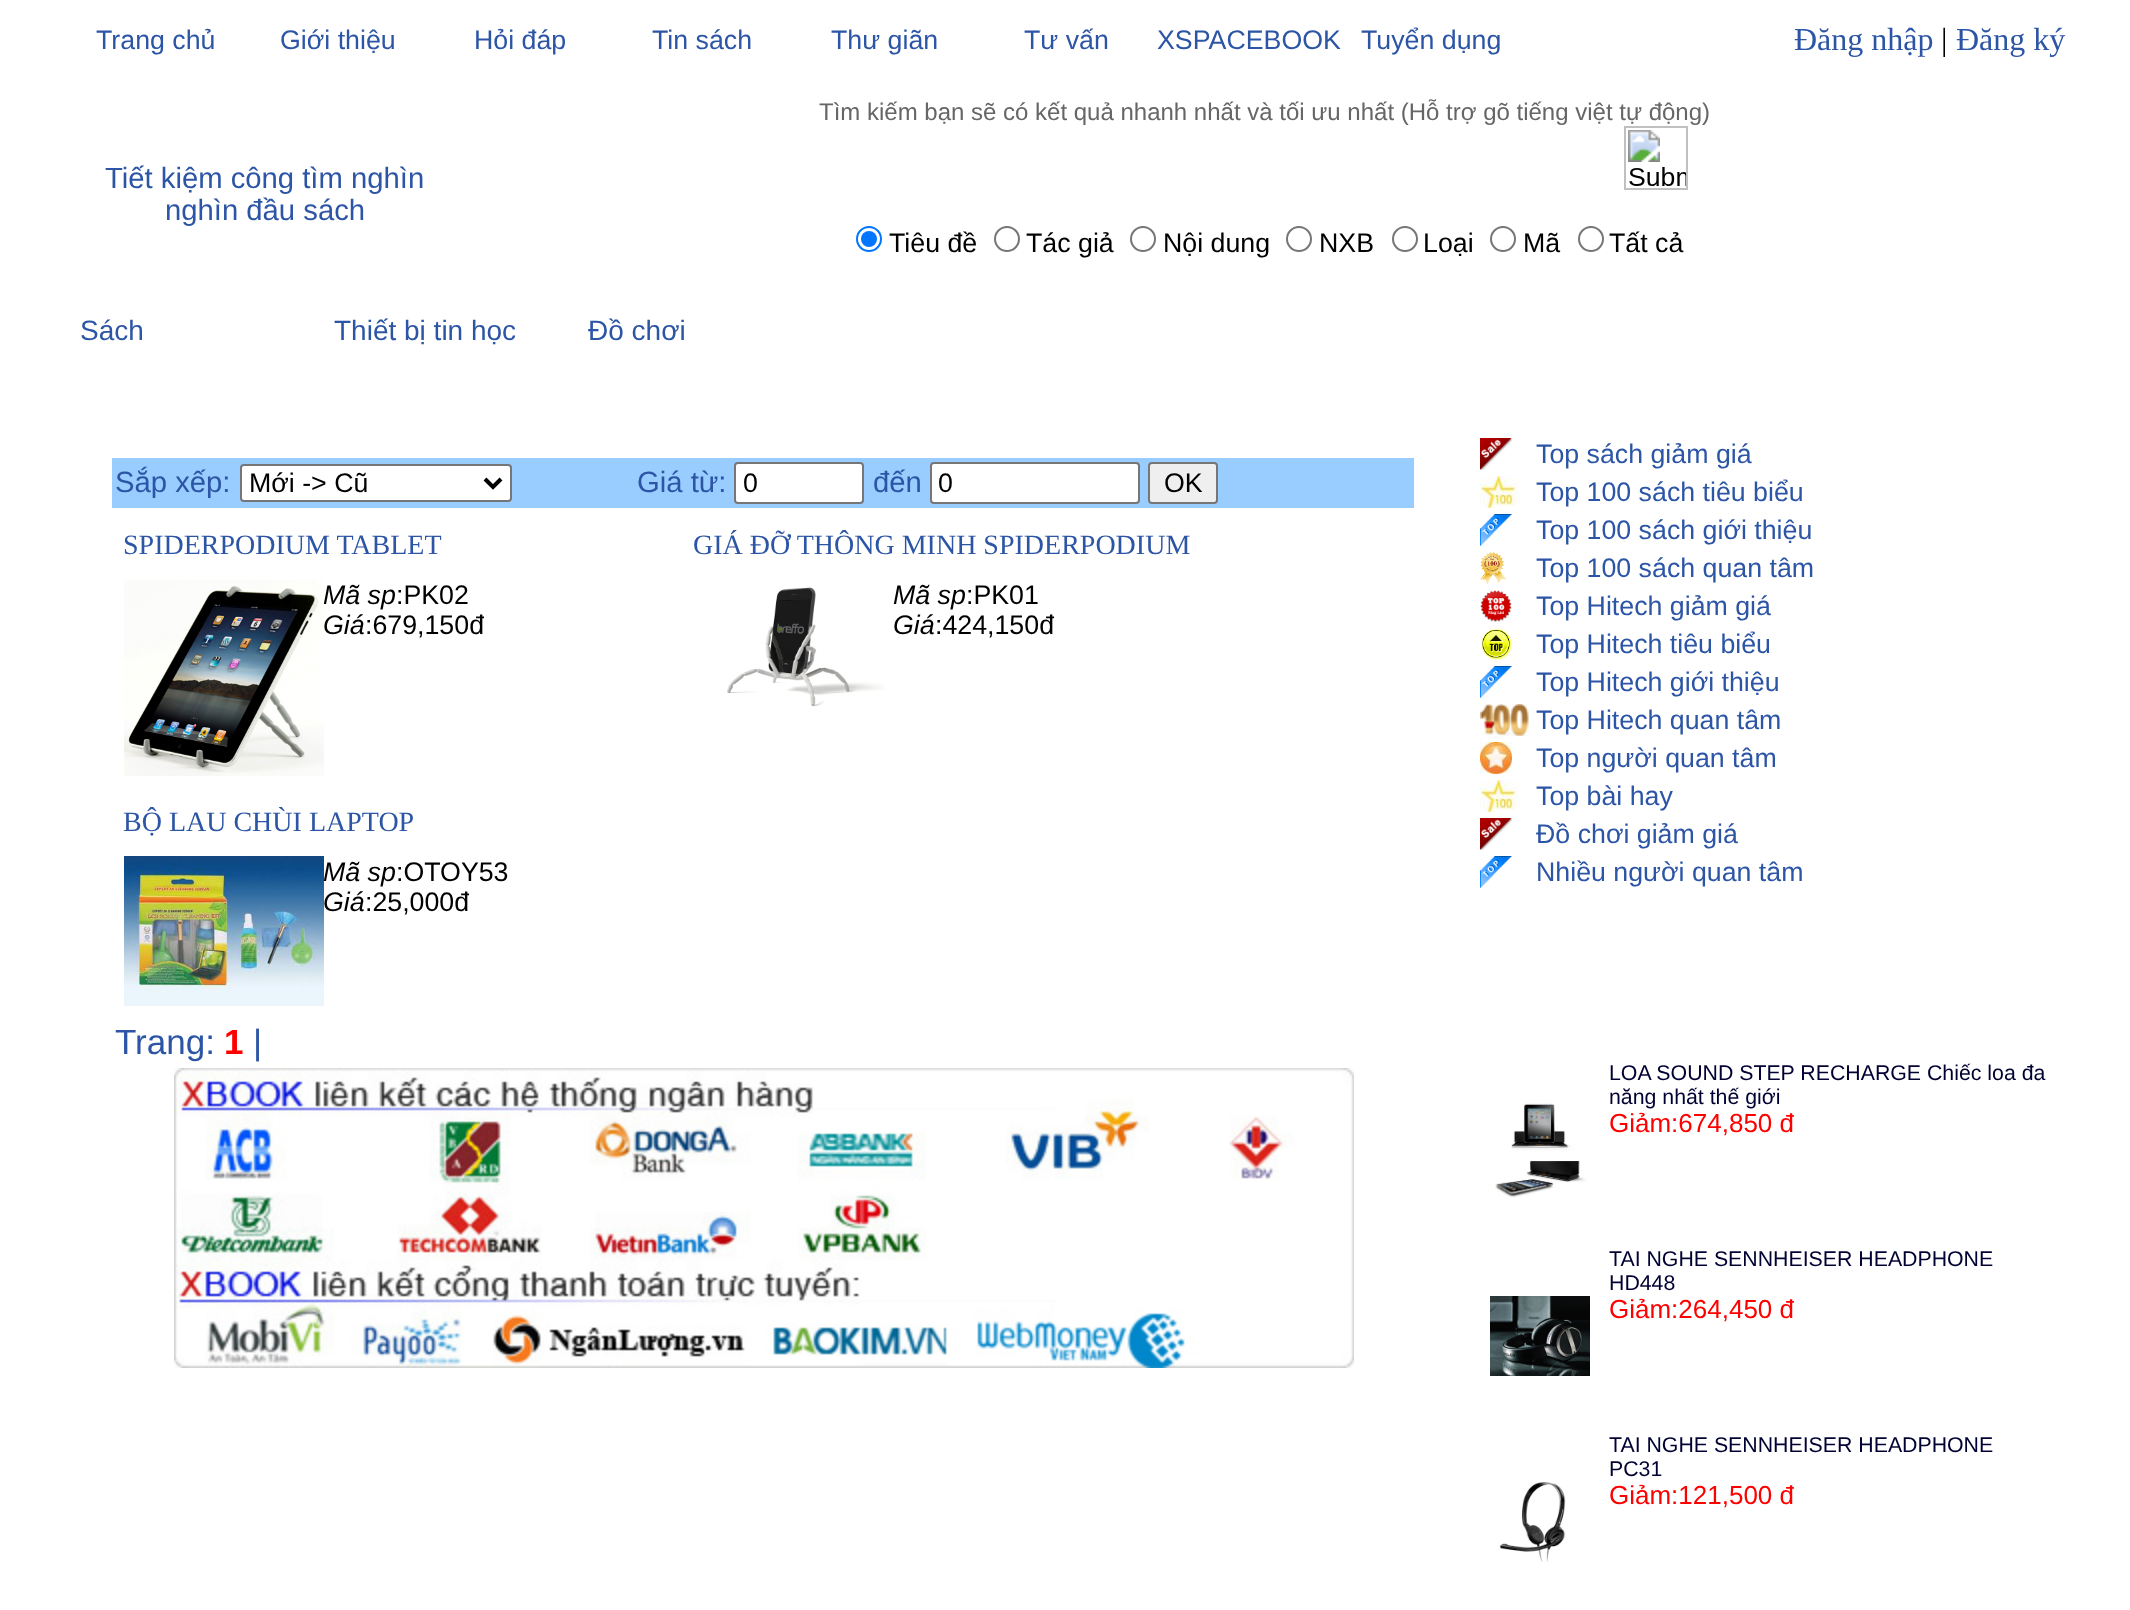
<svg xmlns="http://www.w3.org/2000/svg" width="2130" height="1610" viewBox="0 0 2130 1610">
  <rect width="100%" height="100%" fill="rgb(255,255,255)"/>
  <g font-family="Liberation Sans" font-size="26.75" fill="rgb(44,85,165)">
    <text x="96" y="49">Trang chủ</text>
    <text x="280" y="49">Giới thiệu</text>
    <text x="474" y="49">Hỏi đáp</text>
    <text x="652" y="49">Tin sách</text>
    <text x="831" y="49">Thư giãn</text>
    <text x="1024" y="49">Tư vấn</text>
    <text x="1157" y="49">XSPACEBOOK</text>
    <text x="1361" y="49">Tuyển dụng</text>
  </g>
  <text x="1794" y="50" font-family="Liberation Serif" font-size="32" fill="rgb(44,85,165)">Đăng nhập</text>
  <text x="1941" y="50" font-family="Liberation Serif" font-size="32" fill="rgb(0,0,0)">|</text>
  <text x="1956" y="50" font-family="Liberation Serif" font-size="32" fill="rgb(44,85,165)">Đăng ký</text>
  <g font-family="Liberation Sans" font-size="29.25" fill="rgb(44,85,165)">
    <text x="105" y="188">Tiết kiệm công tìm nghìn</text>
    <text x="165" y="220">nghìn đầu sách</text>
  </g>
  <text x="819" y="120" font-family="Liberation Sans" font-size="24" fill="rgb(102,102,102)">Tìm kiếm bạn sẽ có kết quả nhanh nhất và tối ưu nhất (Hỗ trợ gõ tiếng việt tự động)</text>
  <image x="1624" y="126" width="64" height="64" href="pic1.png"/>
  <circle cx="869" cy="239" r="12" fill="none" stroke="rgb(0,117,255)" stroke-width="2"/>
  <circle cx="869" cy="239" r="8" fill="rgb(0,117,255)"/>
  <text x="889" y="252" font-family="Liberation Sans" font-size="26.75" fill="rgb(0,0,0)">Tiêu đề</text>
  <circle cx="1007" cy="239" r="12" fill="none" stroke="rgb(118,118,118)" stroke-width="2"/>
  <text x="1026" y="252" font-family="Liberation Sans" font-size="26.75" fill="rgb(0,0,0)">Tác giả</text>
  <circle cx="1143" cy="239" r="12" fill="none" stroke="rgb(118,118,118)" stroke-width="2"/>
  <text x="1163" y="252" font-family="Liberation Sans" font-size="26.75" fill="rgb(0,0,0)">Nội dung</text>
  <circle cx="1299" cy="239" r="12" fill="none" stroke="rgb(118,118,118)" stroke-width="2"/>
  <text x="1319" y="252" font-family="Liberation Sans" font-size="26.75" fill="rgb(0,0,0)">NXB</text>
  <circle cx="1405" cy="239" r="12" fill="none" stroke="rgb(118,118,118)" stroke-width="2"/>
  <text x="1423" y="252" font-family="Liberation Sans" font-size="26.75" fill="rgb(0,0,0)">Loại</text>
  <circle cx="1503" cy="239" r="12" fill="none" stroke="rgb(118,118,118)" stroke-width="2"/>
  <text x="1523" y="252" font-family="Liberation Sans" font-size="26.75" fill="rgb(0,0,0)">Mã</text>
  <circle cx="1591" cy="239" r="12" fill="none" stroke="rgb(118,118,118)" stroke-width="2"/>
  <text x="1609" y="252" font-family="Liberation Sans" font-size="26.75" fill="rgb(0,0,0)">Tất cả</text>
  <g font-family="Liberation Sans" font-size="28" fill="rgb(44,85,165)">
    <text x="80" y="340">Sách</text>
    <text x="334" y="340">Thiết bị tin học</text>
    <text x="588" y="340">Đồ chơi</text>
  </g>
  <rect x="112" y="458" width="1302" height="50" fill="rgb(153,204,255)"/>
  <text x="115" y="492" font-family="Liberation Sans" font-size="29.25" fill="rgb(44,85,165)">Sắp xếp:</text>
  <rect x="241" y="465" width="270" height="36" rx="3" fill="rgb(255,255,255)" stroke="rgb(118,118,118)" stroke-width="2"/>
  <path d="M485 479L493 487L501 479" fill="none" stroke="rgb(0,0,0)" stroke-width="4"/>
  <text x="249" y="492" font-family="Liberation Sans" font-size="26.75" fill="rgb(0,0,0)">Mới -&gt; Cũ</text>
  <text x="637" y="492" font-family="Liberation Sans" font-size="29.25" fill="rgb(44,85,165)">Giá từ:</text>
  <rect x="735" y="463" width="128" height="40" rx="3" fill="rgb(255,255,255)" stroke="rgb(118,118,118)" stroke-width="2"/>
  <text x="743" y="492" font-family="Liberation Sans" font-size="26.75" fill="rgb(0,0,0)">0</text>
  <text x="873" y="492" font-family="Liberation Sans" font-size="29.25" fill="rgb(44,85,165)">đến</text>
  <rect x="931" y="463" width="208" height="40" rx="3" fill="rgb(255,255,255)" stroke="rgb(118,118,118)" stroke-width="2"/>
  <text x="938" y="492" font-family="Liberation Sans" font-size="26.75" fill="rgb(0,0,0)">0</text>
  <rect x="1149" y="463" width="68" height="40" rx="3" fill="rgb(239,239,239)" stroke="rgb(118,118,118)" stroke-width="2"/>
  <text x="1164" y="492" font-family="Liberation Sans" font-size="26.75" fill="rgb(0,0,0)">OK</text>
  <text x="123" y="554" font-family="Liberation Serif" font-size="28" fill="rgb(44,85,165)">SPIDERPODIUM TABLET</text>
  <image x="124" y="580" width="200" height="196" href="pic2.png"/>
  <text x="323" y="604" font-family="Liberation Sans" font-size="26.75" font-style="italic" fill="rgb(0,0,0)">Mã sp</text>
  <text x="396" y="604" font-family="Liberation Sans" font-size="26.75" fill="rgb(0,0,0)">:PK02</text>
  <text x="323" y="634" font-family="Liberation Sans" font-size="26.75" font-style="italic" fill="rgb(0,0,0)">Giá</text>
  <text x="365" y="634" font-family="Liberation Sans" font-size="26.75" fill="rgb(0,0,0)">:679,150đ</text>
  <text x="693" y="554" font-family="Liberation Serif" font-size="28" fill="rgb(44,85,165)">GIÁ ĐỠ THÔNG MINH SPIDERPODIUM</text>
  <image x="727" y="587" width="158" height="120" href="pic3.png"/>
  <text x="893" y="604" font-family="Liberation Sans" font-size="26.75" font-style="italic" fill="rgb(0,0,0)">Mã sp</text>
  <text x="966" y="604" font-family="Liberation Sans" font-size="26.75" fill="rgb(0,0,0)">:PK01</text>
  <text x="893" y="634" font-family="Liberation Sans" font-size="26.75" font-style="italic" fill="rgb(0,0,0)">Giá</text>
  <text x="935" y="634" font-family="Liberation Sans" font-size="26.75" fill="rgb(0,0,0)">:424,150đ</text>
  <text x="123" y="831" font-family="Liberation Serif" font-size="28" fill="rgb(44,85,165)">BỘ LAU CHÙI LAPTOP</text>
  <image x="124" y="856" width="200" height="150" href="pic4.png"/>
  <text x="323" y="881" font-family="Liberation Sans" font-size="26.75" font-style="italic" fill="rgb(0,0,0)">Mã sp</text>
  <text x="396" y="881" font-family="Liberation Sans" font-size="26.75" fill="rgb(0,0,0)">:OTOY53</text>
  <text x="323" y="911" font-family="Liberation Sans" font-size="26.75" font-style="italic" fill="rgb(0,0,0)">Giá</text>
  <text x="365" y="911" font-family="Liberation Sans" font-size="26.75" fill="rgb(0,0,0)">:25,000đ</text>
  <text x="115" y="1054" font-family="Liberation Sans" font-size="35" fill="rgb(44,85,165)">Trang:</text>
  <text x="224" y="1054" font-family="Liberation Sans" font-size="35" font-weight="bold" fill="rgb(255,0,0)">1</text>
  <text x="253" y="1054" font-family="Liberation Sans" font-size="35" fill="rgb(44,85,165)">|</text>
  <image x="174" y="1068" width="1180" height="300" href="pic5.png"/>
  <image x="1480" y="438" width="32" height="32" href="pic6.png"/>
  <text x="1536" y="463" font-family="Liberation Sans" font-size="26.75" fill="rgb(44,85,165)">Top sách giảm giá</text>
  <image x="1480" y="476" width="40" height="32" href="pic7.png"/>
  <text x="1536" y="501" font-family="Liberation Sans" font-size="26.75" fill="rgb(44,85,165)">Top 100 sách tiêu biểu</text>
  <image x="1480" y="514" width="32" height="32" href="pic8.png"/>
  <text x="1536" y="539" font-family="Liberation Sans" font-size="26.75" fill="rgb(44,85,165)">Top 100 sách giới thiệu</text>
  <image x="1480" y="552" width="26" height="32" href="pic9.png"/>
  <text x="1536" y="577" font-family="Liberation Sans" font-size="26.75" fill="rgb(44,85,165)">Top 100 sách quan tâm</text>
  <image x="1480" y="590" width="32" height="32" href="pic10.png"/>
  <text x="1536" y="615" font-family="Liberation Sans" font-size="26.75" fill="rgb(44,85,165)">Top Hitech giảm giá</text>
  <image x="1481" y="628" width="31" height="32" href="pic11.png"/>
  <text x="1536" y="653" font-family="Liberation Sans" font-size="26.75" fill="rgb(44,85,165)">Top Hitech tiêu biểu</text>
  <image x="1480" y="666" width="32" height="32" href="pic8.png"/>
  <text x="1536" y="691" font-family="Liberation Sans" font-size="26.75" fill="rgb(44,85,165)">Top Hitech giới thiệu</text>
  <image x="1480" y="704" width="50" height="32" href="pic12.png"/>
  <text x="1536" y="729" font-family="Liberation Sans" font-size="26.75" fill="rgb(44,85,165)">Top Hitech quan tâm</text>
  <image x="1480" y="742" width="32" height="32" href="pic13.png"/>
  <text x="1536" y="767" font-family="Liberation Sans" font-size="26.75" fill="rgb(44,85,165)">Top người quan tâm</text>
  <image x="1480" y="780" width="40" height="32" href="pic7.png"/>
  <text x="1536" y="805" font-family="Liberation Sans" font-size="26.75" fill="rgb(44,85,165)">Top bài hay</text>
  <image x="1480" y="818" width="32" height="32" href="pic6.png"/>
  <text x="1536" y="843" font-family="Liberation Sans" font-size="26.75" fill="rgb(44,85,165)">Đồ chơi giảm giá</text>
  <image x="1480" y="856" width="32" height="32" href="pic8.png"/>
  <text x="1536" y="881" font-family="Liberation Sans" font-size="26.75" fill="rgb(44,85,165)">Nhiều người quan tâm</text>
  <image x="1495" y="1103" width="92" height="95" href="pic14.png"/>
  <g font-family="Liberation Sans" font-size="21.3" fill="rgb(0,0,51)">
    <text>
      <tspan x="1609" y="1080">LOA SOUND STEP RECHARGE Chiếc loa đa</tspan>
      <tspan x="1609" y="1104">năng nhất thế giới</tspan>
    </text>
  </g>
  <text x="1609" y="1132" font-family="Liberation Sans" font-size="26" fill="rgb(255,0,0)">Giảm:674,850 đ</text>
  <g font-family="Liberation Sans" font-size="21.3" fill="rgb(0,0,51)">
    <text>
      <tspan x="1609" y="1266">TAI NGHE SENNHEISER HEADPHONE</tspan>
      <tspan x="1609" y="1290">HD448</tspan>
    </text>
  </g>
  <text x="1609" y="1318" font-family="Liberation Sans" font-size="26" fill="rgb(255,0,0)">Giảm:264,450 đ</text>
  <image x="1490" y="1296" width="100" height="80" href="pic15.png"/>
  <g font-family="Liberation Sans" font-size="21.3" fill="rgb(0,0,51)">
    <text>
      <tspan x="1609" y="1452">TAI NGHE SENNHEISER HEADPHONE</tspan>
      <tspan x="1609" y="1476">PC31</tspan>
    </text>
  </g>
  <text x="1609" y="1504" font-family="Liberation Sans" font-size="26" fill="rgb(255,0,0)">Giảm:121,500 đ</text>
  <image x="1499" y="1482" width="67" height="80" href="pic16.png"/>
</svg>
